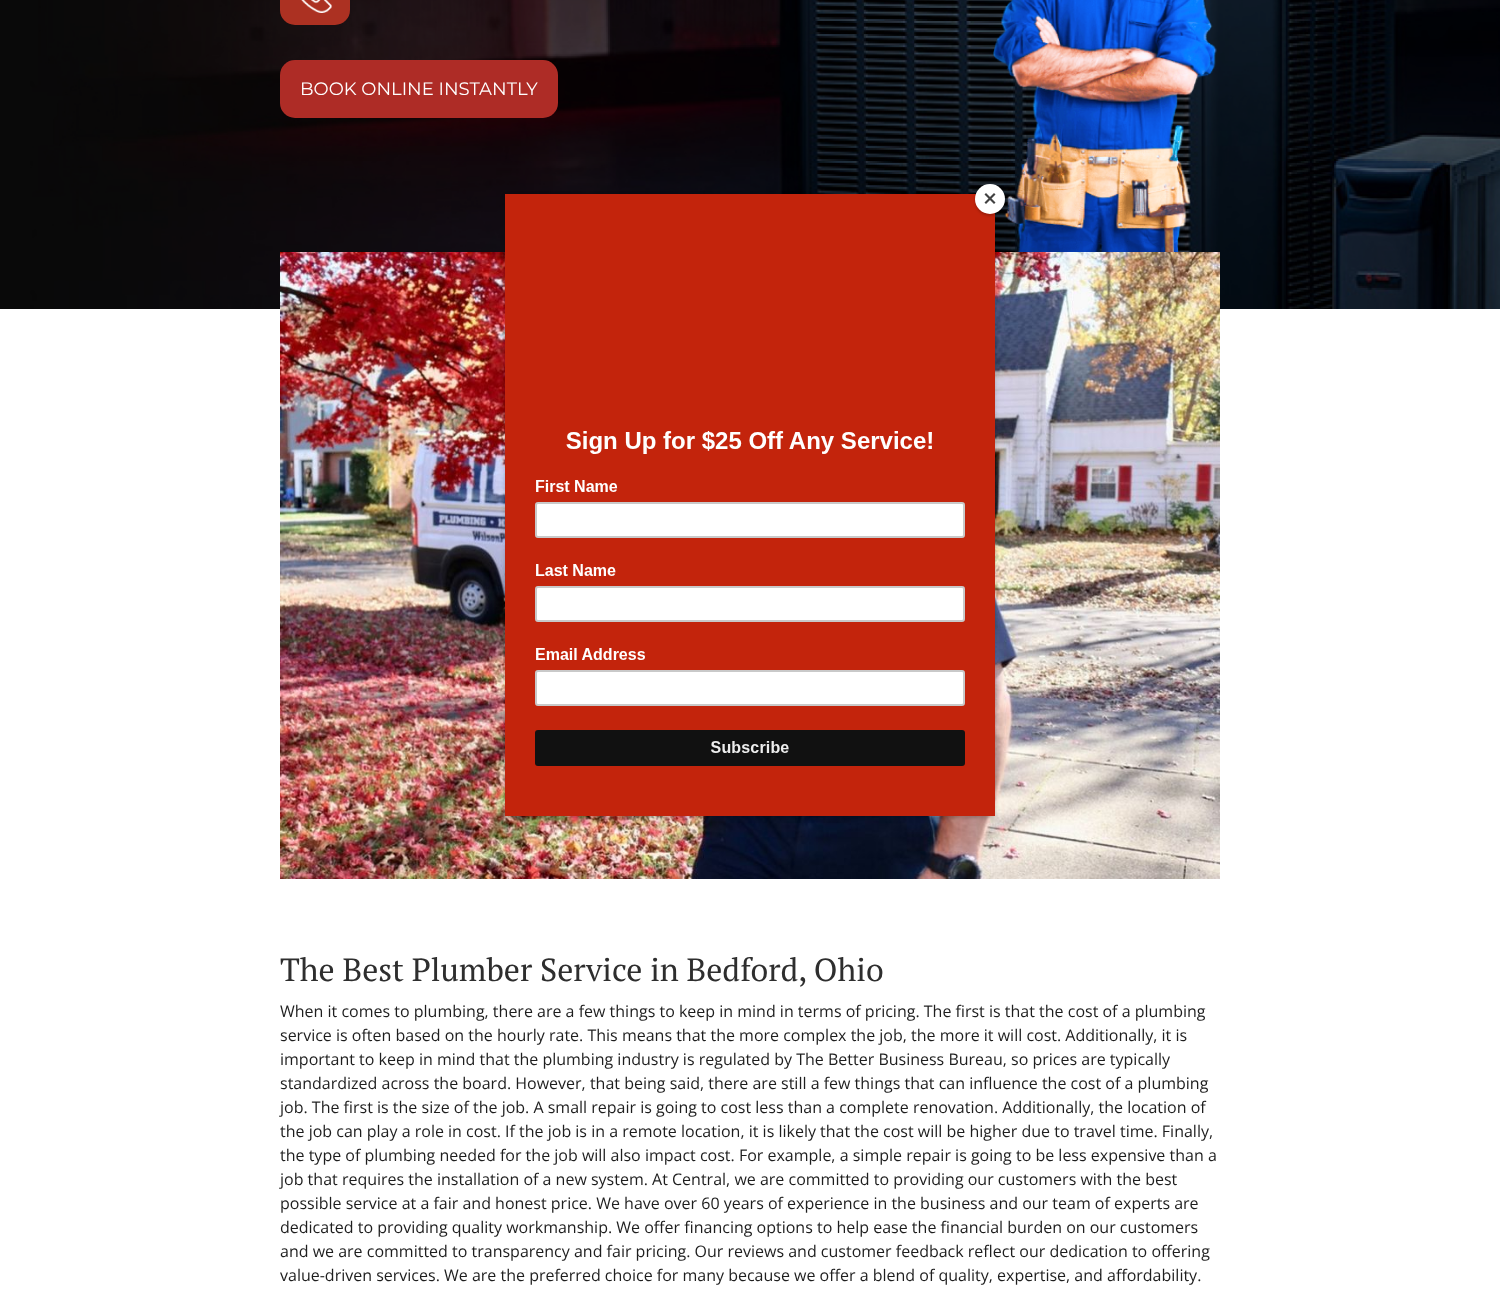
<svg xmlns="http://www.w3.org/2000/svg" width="1500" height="1290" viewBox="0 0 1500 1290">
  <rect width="100%" height="100%" fill="rgb(255,255,255)"/>
  <image x="0" y="0" width="1500" height="309" href="pic1.png"/>
  <rect x="280" y="-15" width="70" height="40" rx="15" fill="rgb(172,49,34)"/>
  <image x="301" y="0" width="32" height="13" href="pic2.png"/>
  <rect x="280" y="60" width="278" height="58" rx="15" fill="rgb(174,44,38)"/>
  <text x="300" y="95" font-family="Montserrat" font-size="18" fill="rgb(255,255,255)">BOOK ONLINE INSTANTLY</text>
  <image x="993" y="0" width="224" height="252" href="pic3.png"/>
  <image x="280" y="252" width="940" height="627" href="pic5.png"/>
  <rect x="505" y="196" width="490" height="622" fill="rgba(0,0,0,0.2)" filter="blur(2px)"/>
  <image x="505" y="194" width="490" height="622" href="pic4.png"/>
  <rect x="975" y="186" width="30" height="30" rx="15" fill="rgba(0,0,0,0.2)" filter="blur(1px)"/>
  <circle cx="990" cy="199" r="15" fill="rgb(255,255,255)"/>
  <path d="M994 193L995.5 194.5L986 204L984.5 202.5Z" fill="rgb(65,65,65)"/>
  <path d="M984.5 194.5L986 193L995.5 202.5L994 204Z" fill="rgb(65,65,65)"/>
  <text x="280" y="981" font-family="PT Serif" font-size="32" fill="rgb(46,46,46)">The Best Plumber Service in Bedford, Ohio</text>
  <g font-family="Open Sans" font-size="16" fill="rgb(30,30,30)">
    <text>
      <tspan x="280" y="1017">When it comes to plumbing, there are a few things to keep in mind in terms of pricing. The first is that the cost of a plumbing</tspan>
      <tspan x="280" y="1041">service is often based on the hourly rate. This means that the more complex the job, the more it will cost. Additionally, it is</tspan>
      <tspan x="280" y="1065">important to keep in mind that the plumbing industry is regulated by The Better Business Bureau, so prices are typically</tspan>
      <tspan x="280" y="1089">standardized across the board. However, that being said, there are still a few things that can influence the cost of a plumbing</tspan>
      <tspan x="280" y="1113">job. The first is the size of the job. A small repair is going to cost less than a complete renovation. Additionally, the location of</tspan>
      <tspan x="280" y="1137">the job can play a role in cost. If the job is in a remote location, it is likely that the cost will be higher due to travel time. Finally,</tspan>
      <tspan x="280" y="1161">the type of plumbing needed for the job will also impact cost. For example, a simple repair is going to be less expensive than a</tspan>
      <tspan x="280" y="1185">job that requires the installation of a new system. At Central, we are committed to providing our customers with the best</tspan>
      <tspan x="280" y="1209">possible service at a fair and honest price. We have over 60 years of experience in the business and our team of experts are</tspan>
      <tspan x="280" y="1233">dedicated to providing quality workmanship. We offer financing options to help ease the financial burden on our customers</tspan>
      <tspan x="280" y="1257">and we are committed to transparency and fair pricing. Our reviews and customer feedback reflect our dedication to offering</tspan>
      <tspan x="280" y="1281">value-driven services. We are the preferred choice for many because we offer a blend of quality, expertise, and affordability.</tspan>
    </text>
  </g>
</svg>
